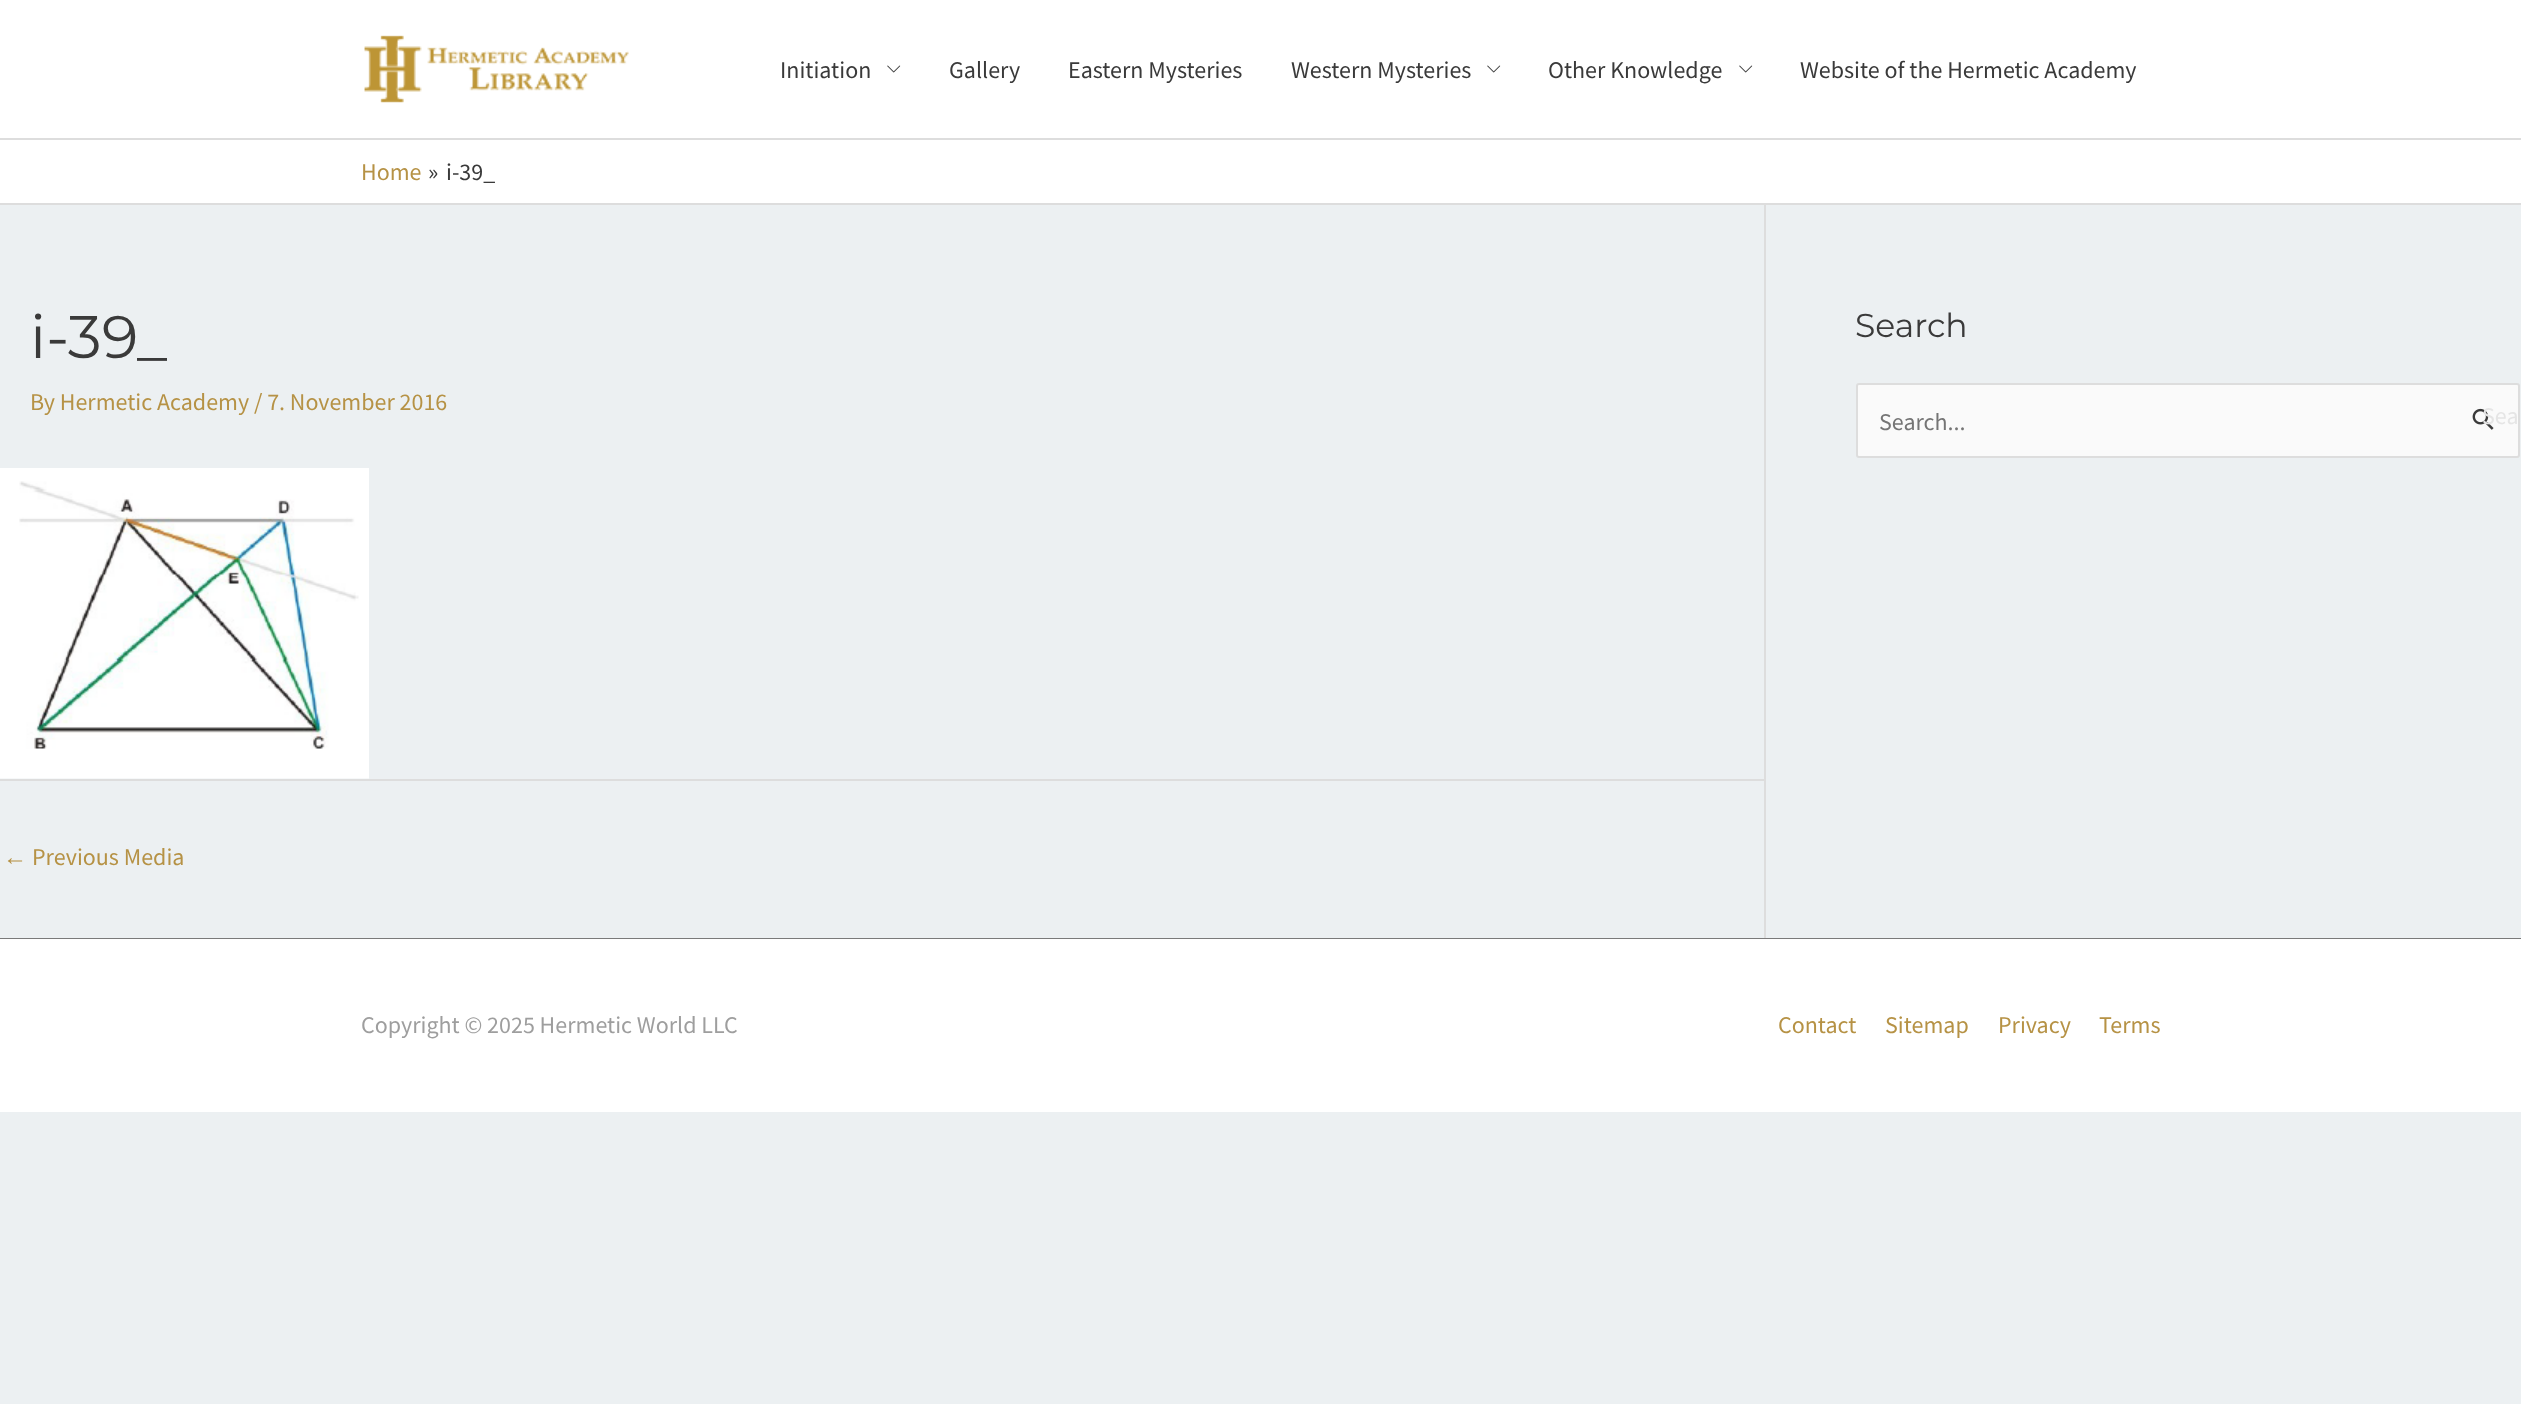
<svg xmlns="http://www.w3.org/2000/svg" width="2521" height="1404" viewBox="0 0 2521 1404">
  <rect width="100%" height="100%" fill="rgb(236,240,242)"/>
  <rect x="0" y="0" width="2521" height="138" fill="rgb(255,255,255)"/>
  <rect x="0" y="138" width="2521" height="2" fill="rgb(221,221,221)"/>
  <image x="364" y="35" width="265" height="68" href="pic1.png"/>
  <text x="780" y="78" font-family="Source Sans Pro" font-size="24" fill="rgb(58,58,58)">Initiation</text>
  <image x="887" y="65" width="14" height="8" href="pic2.png"/>
  <g font-family="Source Sans Pro" font-size="24" fill="rgb(58,58,58)">
    <text x="949" y="78">Gallery</text>
    <text x="1068" y="78">Eastern Mysteries</text>
    <text x="1291" y="78">Western Mysteries</text>
  </g>
  <image x="1487" y="65" width="14" height="8" href="pic2.png"/>
  <text x="1548" y="78" font-family="Source Sans Pro" font-size="24" fill="rgb(58,58,58)">Other Knowledge</text>
  <image x="1739" y="65" width="14" height="8" href="pic2.png"/>
  <text x="1800" y="78" font-family="Source Sans Pro" font-size="24" fill="rgb(58,58,58)">Website of the Hermetic Academy</text>
  <rect x="0" y="140" width="2521" height="63" fill="rgb(255,255,255)"/>
  <rect x="1764" y="204" width="2" height="734" fill="rgb(221,221,221)"/>
  <rect x="0" y="203" width="2521" height="2" fill="rgb(221,221,221)"/>
  <text x="361" y="180" font-family="Source Sans Pro" font-size="24" fill="rgb(182,146,69)">Home</text>
  <g font-family="Source Sans Pro" font-size="24" fill="rgb(58,58,58)">
    <text x="428" y="180">»</text>
    <text x="446" y="180">i-39_</text>
  </g>
  <text x="30" y="358" font-family="Montserrat" font-size="60" fill="rgb(58,58,58)">i-39_</text>
  <text x="30" y="410" font-family="Source Sans Pro" font-size="24" fill="rgb(182,146,69)">By Hermetic Academy / 7. November 2016</text>
  <image x="0" y="468" width="369" height="311" href="pic3.png"/>
  <rect x="0" y="779" width="1764" height="2" fill="rgb(221,221,221)"/>
  <text x="3" y="865" font-family="Liberation Sans" font-size="24" fill="rgb(182,146,69)">←</text>
  <text x="32" y="865" font-family="Source Sans Pro" font-size="24" fill="rgb(182,146,69)">Previous Media</text>
  <text x="1855" y="337" font-family="Montserrat" font-size="33" fill="rgb(58,58,58)">Search</text>
  <rect x="1857" y="384" width="662" height="73" rx="2" fill="rgb(250,250,250)" stroke="rgb(221,221,221)" stroke-width="2"/>
  <image x="2472" y="408" width="22" height="22" href="pic4.png"/>
  <text x="1879" y="430" font-family="Source Sans Pro" font-size="24" fill="rgb(117,117,117)">Search...</text>
  <text x="2482" y="424" font-family="Source Sans Pro" font-size="24" fill="rgb(229,229,229)">Sea</text>
  <rect x="0" y="938" width="2521" height="1" fill="rgb(122,122,122)"/>
  <rect x="0" y="939" width="2521" height="173" fill="rgb(255,255,255)"/>
  <text x="361" y="1033" font-family="Source Sans Pro" font-size="24" fill="rgb(158,158,158)">Copyright © 2025 Hermetic World LLC</text>
  <g font-family="Source Sans Pro" font-size="24" fill="rgb(182,146,69)">
    <text x="1778" y="1033">Contact</text>
    <text x="1885" y="1033">Sitemap</text>
    <text x="1998" y="1033">Privacy</text>
    <text x="2099" y="1033">Terms</text>
  </g>
</svg>
